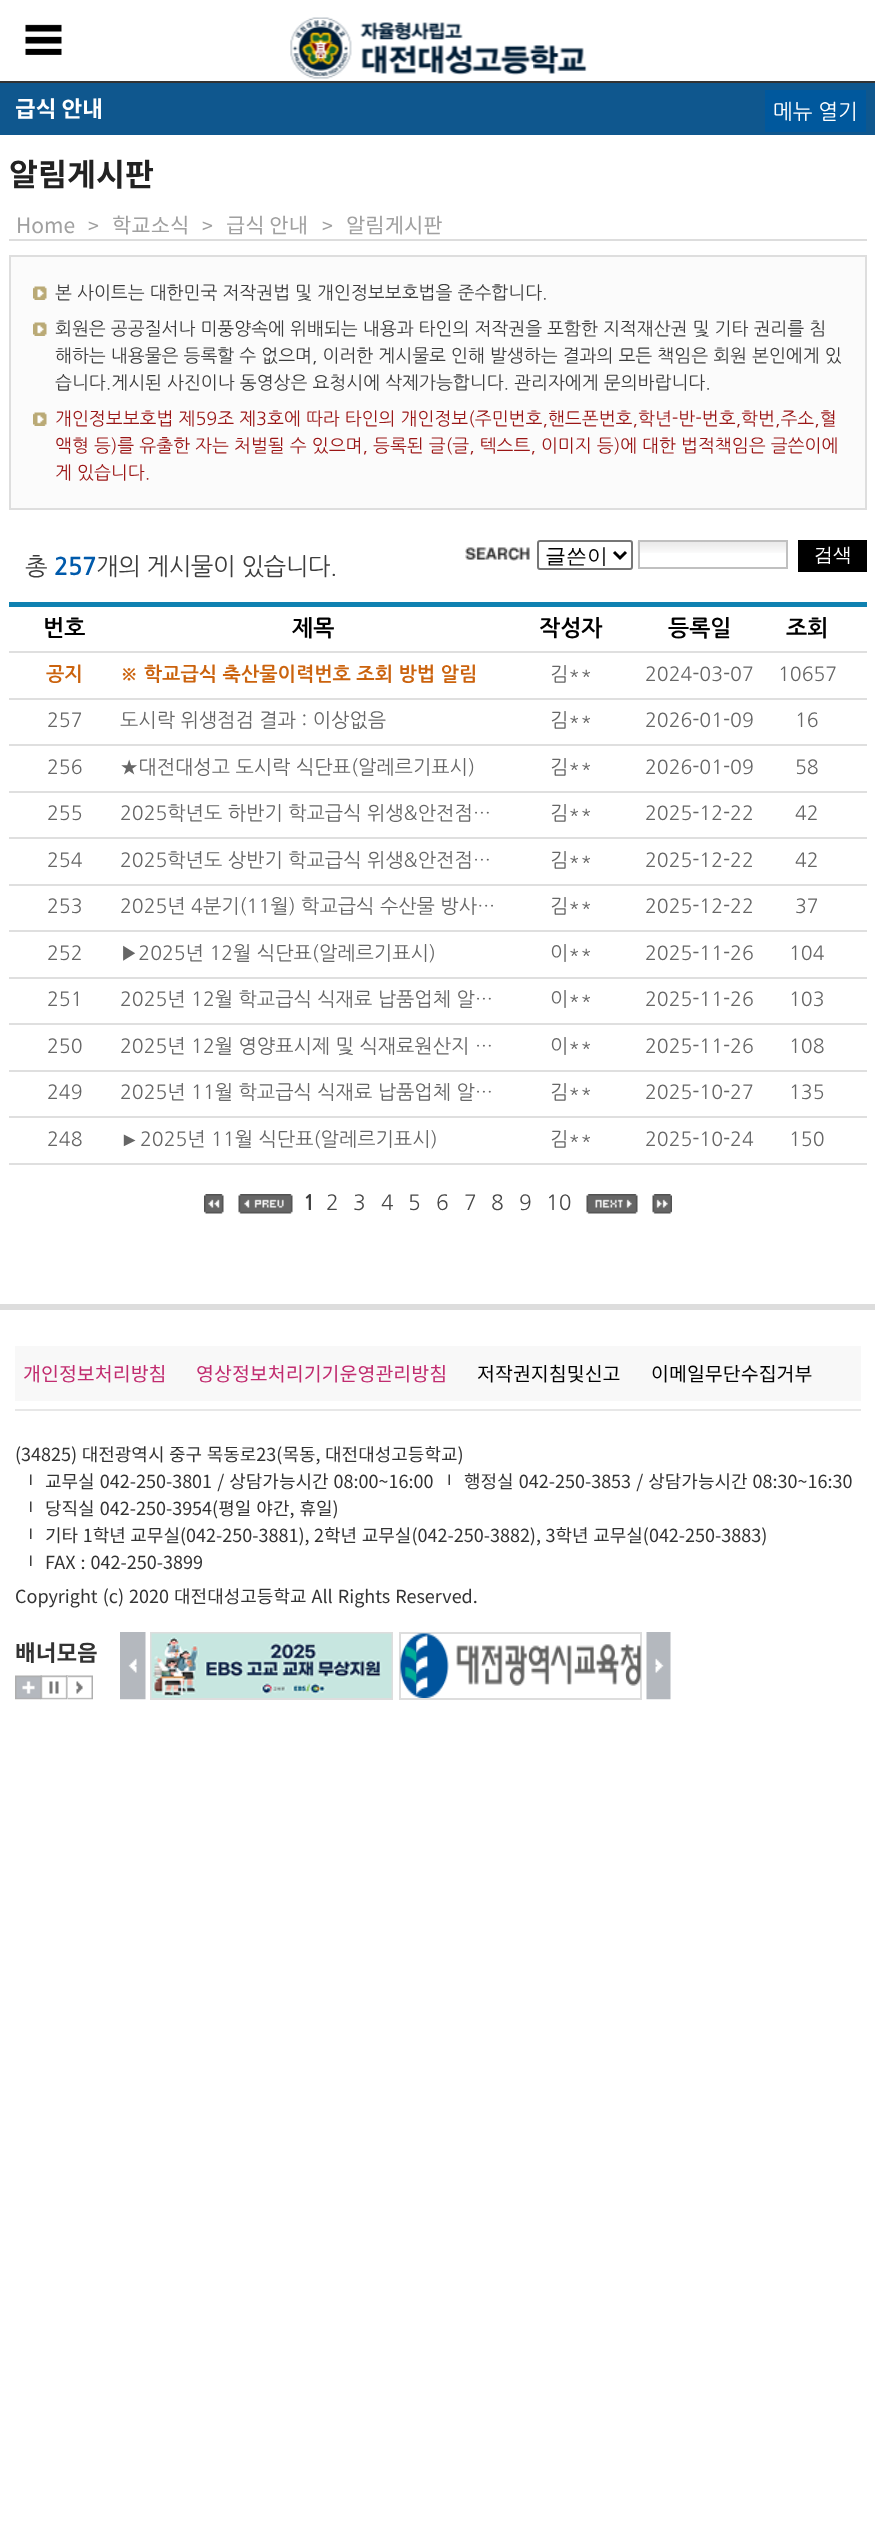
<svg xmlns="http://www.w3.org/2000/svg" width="875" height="2529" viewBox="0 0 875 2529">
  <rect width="100%" height="100%" fill="rgb(255,255,255)"/>
  <rect x="0" y="81" width="875" height="2" fill="rgb(51,51,51)"/>
  <image x="25" y="24" width="37" height="31" href="pic1.png"/>
  <image x="290" y="17" width="297" height="62" href="pic2.png"/>
  <rect x="0" y="83" width="875" height="52" fill="rgb(15,87,142)"/>
  <text x="15" y="117" font-family="Noto Sans KR" font-size="22.5" font-weight="bold" fill="rgb(255,255,255)">급식 안내</text>
  <rect x="765" y="90" width="101" height="42" fill="rgb(0,88,157)"/>
  <text x="773" y="119" font-family="NanumGothic" font-size="21" fill="rgb(255,255,255)">메뉴 열기</text>
  <rect x="9" y="239" width="858" height="2" fill="rgb(221,221,221)"/>
  <text x="9" y="186" font-family="Noto Sans KR" font-size="31.5" font-weight="bold" fill="rgb(34,34,34)">알림게시판</text>
  <text x="16" y="233" font-family="Noto Sans KR" font-size="21" fill="rgb(160,160,160)">Home</text>
  <text x="88" y="233" font-family="Noto Sans KR" font-size="19.5" fill="rgb(160,160,160)">&gt;</text>
  <text x="112" y="233" font-family="Noto Sans KR" font-size="21" fill="rgb(160,160,160)">학교소식</text>
  <text x="202" y="233" font-family="Noto Sans KR" font-size="19.5" fill="rgb(160,160,160)">&gt;</text>
  <text x="226" y="233" font-family="Noto Sans KR" font-size="21" fill="rgb(160,160,160)">급식 안내</text>
  <text x="322" y="233" font-family="Noto Sans KR" font-size="19.5" fill="rgb(160,160,160)">&gt;</text>
  <text x="346" y="233" font-family="Noto Sans KR" font-size="21" fill="rgb(160,160,160)">알림게시판</text>
  <rect x="10" y="256" width="856" height="253" fill="rgb(251,251,251)" stroke="rgb(222,222,222)" stroke-width="2"/>
  <image x="33" y="286" width="14" height="14" href="pic3.png"/>
  <text x="55" y="299" font-family="NanumGothic" font-size="18" fill="rgb(61,61,61)">본 사이트는 대한민국 저작권법 및 개인정보보호법을 준수합니다.</text>
  <image x="33" y="322" width="14" height="14" href="pic3.png"/>
  <g font-family="NanumGothic" font-size="18" fill="rgb(61,61,61)">
    <text>
      <tspan x="55" y="335">회원은 공공질서나 미풍양속에 위배되는 내용과 타인의 저작권을 포함한 지적재산권 및 기타 권리를 침</tspan>
      <tspan x="55" y="362">해하는 내용물은 등록할 수 없으며, 이러한 게시물로 인해 발생하는 결과의 모든 책임은 회원 본인에게 있</tspan>
      <tspan x="55" y="389">습니다.게시된 사진이나 동영상은 요청시에 삭제가능합니다. 관리자에게 문의바랍니다.</tspan>
    </text>
  </g>
  <image x="33" y="412" width="14" height="14" href="pic3.png"/>
  <g font-family="NanumGothic" font-size="18" fill="rgb(154,21,21)">
    <text>
      <tspan x="55" y="425">개인정보보호법 제59조 제3호에 따라 타인의 개인정보(주민번호,핸드폰번호,학년-반-번호,학번,주소,혈</tspan>
      <tspan x="55" y="452">액형 등)를 유출한 자는 처벌될 수 있으며, 등록된 글(글, 텍스트, 이미지 등)에 대한 법적책임은 글쓴이에</tspan>
      <tspan x="55" y="479">게 있습니다.</tspan>
    </text>
  </g>
  <text x="25" y="575" font-family="NanumGothic" font-size="24.1" letter-spacing="-0.5" fill="rgb(61,61,61)">총</text>
  <text x="54" y="575" font-family="NanumGothic" font-size="24.1" font-weight="bold" letter-spacing="-0.5" fill="rgb(0,90,171)">257</text>
  <text x="96" y="575" font-family="NanumGothic" font-size="24.1" letter-spacing="-0.5" fill="rgb(61,61,61)">개의 게시물이 있습니다.</text>
  <image x="465" y="547" width="65" height="14" href="pic4.png"/>
  <rect x="538" y="541" width="94" height="28" rx="2" fill="none" stroke="rgb(118,118,118)" stroke-width="2"/>
  <path d="M614 552L620 558L626 552" fill="none" stroke="rgb(0,0,0)" stroke-width="3"/>
  <text x="545" y="563" font-family="WenQuanYi Zen Hei" font-size="21" font-weight="500" fill="rgb(0,0,0)">글쓴이</text>
  <image x="637" y="541" width="149" height="12" href="pic5.png"/>
  <rect x="639" y="541" width="148" height="27" fill="none" stroke="rgb(192,192,192)" stroke-width="2"/>
  <rect x="798" y="540" width="69" height="32" fill="rgb(0,0,0)"/>
  <text x="814" y="561" font-family="WenQuanYi Zen Hei" font-size="19" font-weight="500" fill="rgb(255,255,255)">검색</text>
  <rect x="9" y="602" width="858" height="5" fill="rgb(15,129,177)"/>
  <rect x="9" y="651" width="858" height="2" fill="rgb(223,223,223)"/>
  <g font-family="NanumGothic" font-size="22.5" font-weight="bold" fill="rgb(0,0,0)">
    <text x="43" y="636">번호</text>
    <text x="292" y="636">제목</text>
    <text x="539" y="636">작성자</text>
    <text x="668" y="636">등록일</text>
    <text x="786" y="636">조회</text>
  </g>
  <rect x="9" y="698" width="858" height="2" fill="rgb(223,223,223)"/>
  <g font-family="NanumGothic" font-size="19.5" font-weight="bold" fill="rgb(203,99,14)">
    <text x="46" y="681">공지</text>
    <text x="120" y="681">※ 학교급식 축산물이력번호 조회 방법 알림</text>
  </g>
  <g font-family="NanumGothic" font-size="19.5" fill="rgb(102,102,102)">
    <text x="550" y="681">김**</text>
    <text x="645" y="681">2024-03-07</text>
    <text x="778" y="681">10657</text>
  </g>
  <rect x="9" y="744" width="858" height="2" fill="rgb(223,223,223)"/>
  <g font-family="NanumGothic" font-size="19.5" fill="rgb(102,102,102)">
    <text x="47" y="727">257</text>
    <text x="120" y="727">도시락 위생점검 결과 : 이상없음</text>
    <text x="550" y="727">김**</text>
    <text x="645" y="727">2026-01-09</text>
    <text x="795" y="727">16</text>
  </g>
  <rect x="9" y="791" width="858" height="2" fill="rgb(223,223,223)"/>
  <g font-family="NanumGothic" font-size="19.5" fill="rgb(102,102,102)">
    <text x="47" y="774">256</text>
    <text x="120" y="774">★대전대성고 도시락 식단표(알레르기표시)</text>
    <text x="550" y="774">김**</text>
    <text x="645" y="774">2026-01-09</text>
    <text x="795" y="774">58</text>
  </g>
  <rect x="9" y="837" width="858" height="2" fill="rgb(223,223,223)"/>
  <g font-family="NanumGothic" font-size="19.5" fill="rgb(102,102,102)">
    <text x="47" y="820">255</text>
    <text x="120" y="820">2025학년도 하반기 학교급식 위생&amp;안전점…</text>
    <text x="550" y="820">김**</text>
    <text x="645" y="820">2025-12-22</text>
    <text x="795" y="820">42</text>
  </g>
  <rect x="9" y="884" width="858" height="2" fill="rgb(223,223,223)"/>
  <g font-family="NanumGothic" font-size="19.5" fill="rgb(102,102,102)">
    <text x="47" y="867">254</text>
    <text x="120" y="867">2025학년도 상반기 학교급식 위생&amp;안전점…</text>
    <text x="550" y="867">김**</text>
    <text x="645" y="867">2025-12-22</text>
    <text x="795" y="867">42</text>
  </g>
  <rect x="9" y="930" width="858" height="2" fill="rgb(223,223,223)"/>
  <g font-family="NanumGothic" font-size="19.5" fill="rgb(102,102,102)">
    <text x="47" y="913">253</text>
    <text x="120" y="913">2025년 4분기(11월) 학교급식 수산물 방사…</text>
    <text x="550" y="913">김**</text>
    <text x="645" y="913">2025-12-22</text>
    <text x="795" y="913">37</text>
  </g>
  <rect x="9" y="977" width="858" height="2" fill="rgb(223,223,223)"/>
  <g font-family="NanumGothic" font-size="19.5" fill="rgb(102,102,102)">
    <text x="47" y="960">252</text>
    <text x="120" y="960">▶2025년 12월 식단표(알레르기표시)</text>
    <text x="550" y="960">이**</text>
    <text x="645" y="960">2025-11-26</text>
    <text x="789" y="960">104</text>
  </g>
  <rect x="9" y="1023" width="858" height="2" fill="rgb(223,223,223)"/>
  <g font-family="NanumGothic" font-size="19.5" fill="rgb(102,102,102)">
    <text x="47" y="1006">251</text>
    <text x="120" y="1006">2025년 12월 학교급식 식재료 납품업체 알…</text>
    <text x="550" y="1006">이**</text>
    <text x="645" y="1006">2025-11-26</text>
    <text x="789" y="1006">103</text>
  </g>
  <rect x="9" y="1070" width="858" height="2" fill="rgb(223,223,223)"/>
  <g font-family="NanumGothic" font-size="19.5" fill="rgb(102,102,102)">
    <text x="47" y="1053">250</text>
    <text x="120" y="1053">2025년 12월 영양표시제 및 식재료원산지 …</text>
    <text x="550" y="1053">이**</text>
    <text x="645" y="1053">2025-11-26</text>
    <text x="789" y="1053">108</text>
  </g>
  <rect x="9" y="1116" width="858" height="2" fill="rgb(223,223,223)"/>
  <g font-family="NanumGothic" font-size="19.5" fill="rgb(102,102,102)">
    <text x="47" y="1099">249</text>
    <text x="120" y="1099">2025년 11월 학교급식 식재료 납품업체 알…</text>
    <text x="550" y="1099">김**</text>
    <text x="645" y="1099">2025-10-27</text>
    <text x="789" y="1099">135</text>
  </g>
  <rect x="9" y="1163" width="858" height="2" fill="rgb(223,223,223)"/>
  <text x="47" y="1146" font-family="NanumGothic" font-size="19.5" fill="rgb(102,102,102)">248</text>
  <text x="120" y="1146" font-family="Liberation Sans" font-size="19.5" fill="rgb(102,102,102)">►</text>
  <g font-family="NanumGothic" font-size="19.5" fill="rgb(102,102,102)">
    <text x="140" y="1146">2025년 11월 식단표(알레르기표시)</text>
    <text x="550" y="1146">김**</text>
    <text x="645" y="1146">2025-10-24</text>
    <text x="789" y="1146">150</text>
  </g>
  <image x="204" y="1194" width="20" height="20" href="pic6.png"/>
  <image x="238" y="1194" width="55" height="20" href="pic7.png"/>
  <text x="303" y="1210" font-family="NanumGothic" font-size="21" font-weight="bold" fill="rgb(61,61,61)">1</text>
  <g font-family="NanumGothic" font-size="21" fill="rgb(72,72,72)">
    <text x="326" y="1210">2</text>
    <text x="353" y="1210">3</text>
    <text x="381" y="1210">4</text>
    <text x="408" y="1210">5</text>
    <text x="436" y="1210">6</text>
    <text x="464" y="1210">7</text>
    <text x="491" y="1210">8</text>
    <text x="519" y="1210">9</text>
    <text x="546" y="1210">10</text>
  </g>
  <image x="586" y="1194" width="52" height="20" href="pic8.png"/>
  <image x="652" y="1194" width="20" height="20" href="pic9.png"/>
  <rect x="0" y="1304" width="875" height="6" fill="rgb(221,221,221)"/>
  <rect x="15" y="1346" width="846" height="55" fill="rgb(248,248,248)"/>
  <g font-family="Noto Sans KR" font-size="19.5" fill="rgb(193,44,111)">
    <text x="23" y="1381">개인정보처리방침</text>
    <text x="196" y="1381">영상정보처리기기운영관리방침</text>
  </g>
  <g font-family="Noto Sans KR" font-size="19.5" fill="rgb(0,0,0)">
    <text x="477" y="1381">저작권지침및신고</text>
    <text x="651" y="1381">이메일무단수집거부</text>
  </g>
  <rect x="15" y="1409" width="846" height="2" fill="rgb(231,231,231)"/>
  <text x="15" y="1461" word-spacing="0.5" font-family="Noto Sans KR" font-size="18" fill="rgb(51,51,51)">(34825) 대전광역시 중구 목동로23(목동, 대전대성고등학교)</text>
  <image x="30" y="1474" width="2" height="11" href="pic10.png"/>
  <text x="45" y="1488" word-spacing="1" font-family="Noto Sans KR" font-size="18" fill="rgb(51,51,51)">교무실 042-250-3801 / 상담가능시간 08:00~16:00</text>
  <image x="448" y="1474" width="2" height="11" href="pic11.png"/>
  <text x="464" y="1488" word-spacing="1" font-family="Noto Sans KR" font-size="18" fill="rgb(51,51,51)">행정실 042-250-3853 / 상담가능시간 08:30~16:30</text>
  <image x="30" y="1501" width="2" height="11" href="pic10.png"/>
  <text x="45" y="1515" word-spacing="1" font-family="Noto Sans KR" font-size="18" fill="rgb(51,51,51)">당직실 042-250-3954(평일 야간, 휴일)</text>
  <image x="30" y="1528" width="2" height="11" href="pic10.png"/>
  <text x="45" y="1542" word-spacing="0.5" font-family="Noto Sans KR" font-size="18" fill="rgb(51,51,51)">기타 1학년 교무실(042-250-3881), 2학년 교무실(042-250-3882), 3학년 교무실(042-250-3883)</text>
  <image x="30" y="1555" width="2" height="11" href="pic10.png"/>
  <g font-family="Noto Sans KR" font-size="18" fill="rgb(51,51,51)">
    <text x="45" y="1569" word-spacing="1">FAX : 042-250-3899</text>
    <text x="15" y="1603" word-spacing="1">Copyright (c) 2020 대전대성고등학교 All Rights Reserved.</text>
  </g>
  <image x="15" y="1675" width="27" height="25" href="pic12.png"/>
  <image x="66" y="1675" width="27" height="25" href="pic14.png"/>
  <rect x="41" y="1676" width="27" height="24" fill="rgb(255,255,255)"/>
  <image x="40" y="1675" width="28" height="25" href="pic13.png"/>
  <image x="120" y="1632" width="26" height="68" href="pic15.png"/>
  <image x="646" y="1632" width="25" height="68" href="pic16.png"/>
  <text x="15" y="1661" font-family="Noto Sans KR" font-size="22.5" font-weight="bold" fill="rgb(51,51,51)">배너모음</text>
  <rect x="151" y="1633" width="241" height="66" fill="none" stroke="rgb(221,221,221)" stroke-width="2"/>
  <image x="151" y="1633" width="241" height="65" href="pic17.png"/>
  <rect x="400" y="1633" width="241" height="66" fill="none" stroke="rgb(221,221,221)" stroke-width="2"/>
  <image x="400" y="1633" width="241" height="65" href="pic18.png"/>
</svg>
